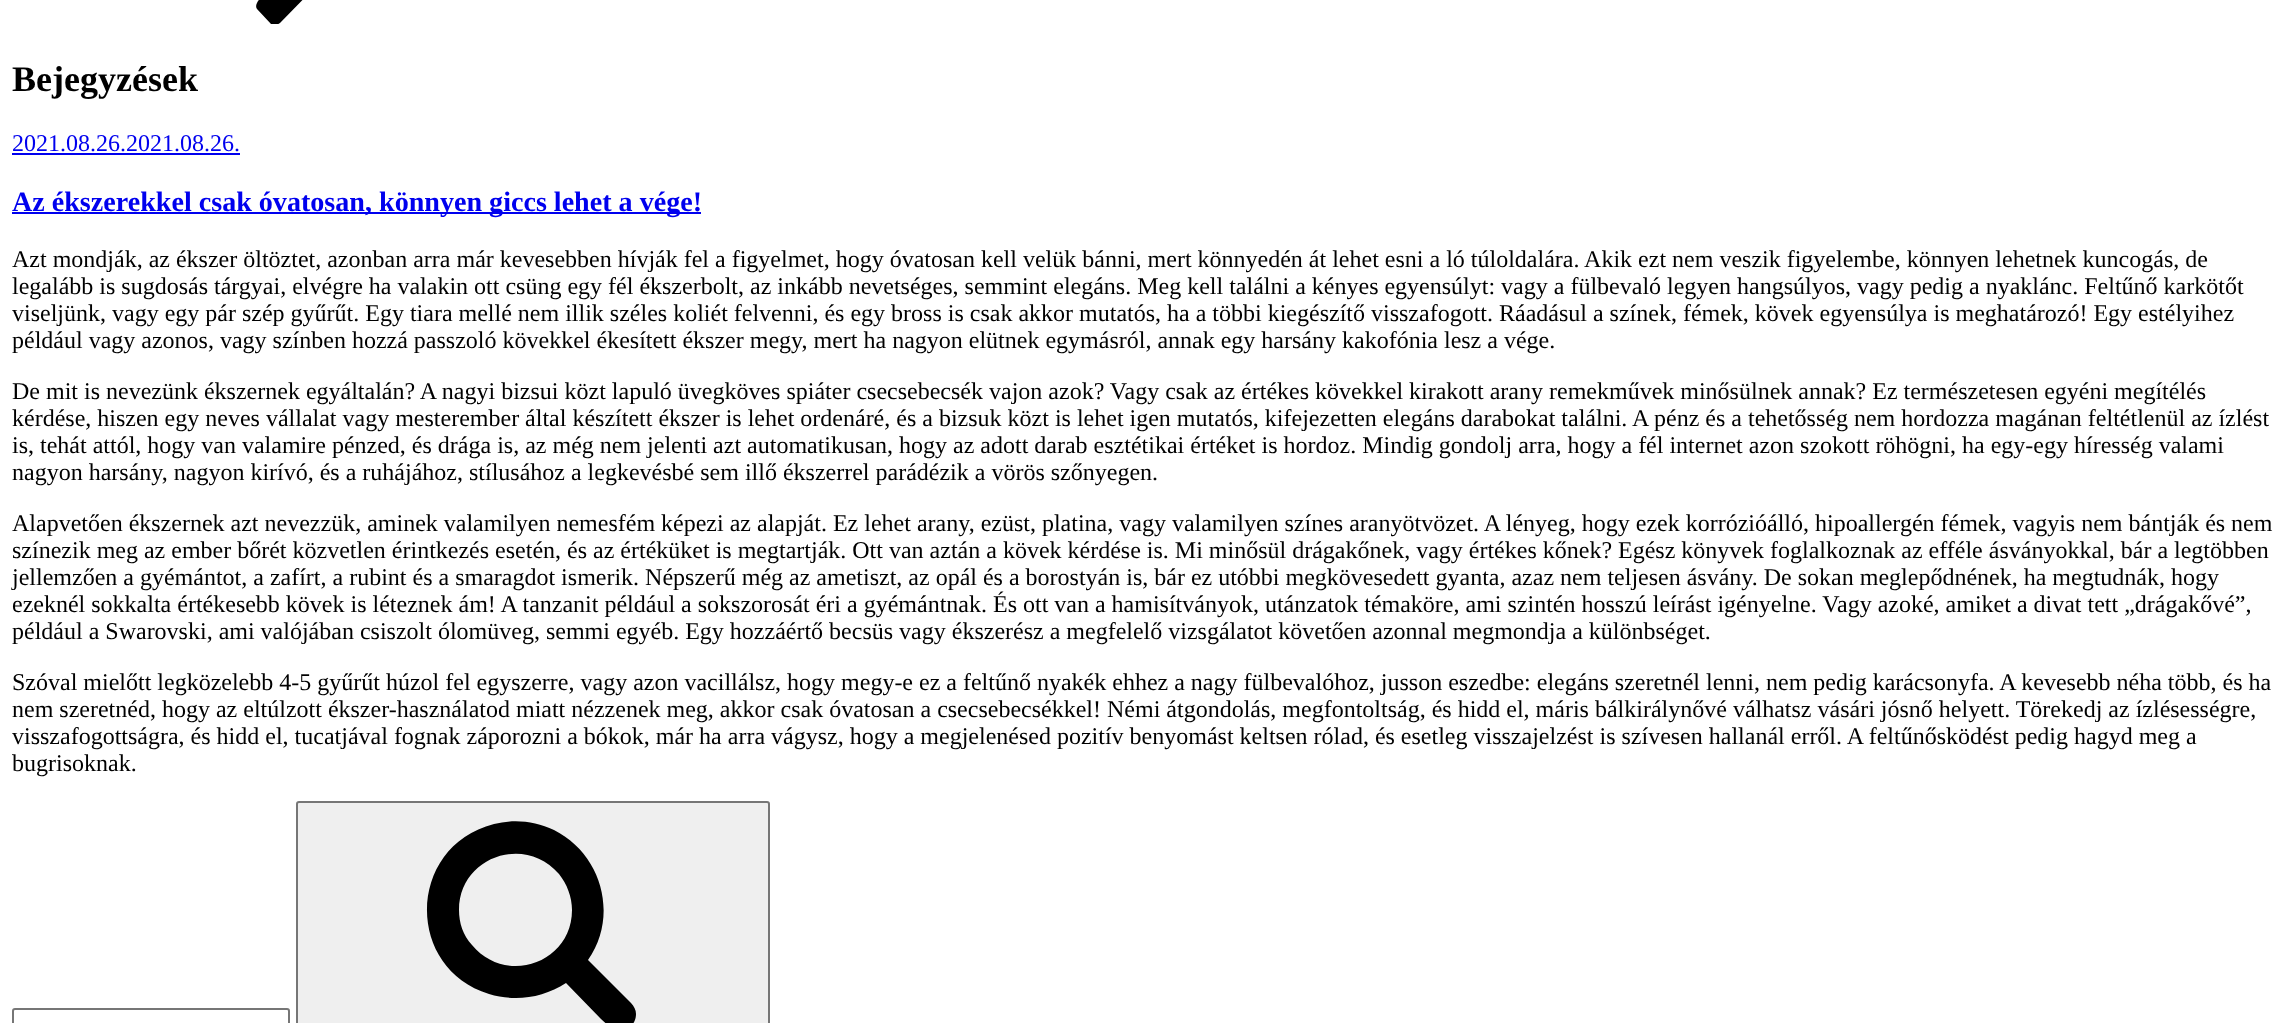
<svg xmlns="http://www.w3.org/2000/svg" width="2284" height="1023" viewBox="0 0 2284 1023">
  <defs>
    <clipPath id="clip1"><rect x="12" y="0" width="450" height="24"/></clipPath>
  </defs>
  <rect width="100%" height="100%" fill="rgb(255,255,255)"/>
  <g clip-path="url(#clip1)">
    <path d="M88-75L93-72H331L270-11C270-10 252 2 257 9L271 24C274 26 277 25 280 23L366-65C393-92 392-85 366-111L278-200C273-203 266-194 263-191C259-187 254-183 260-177L332-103H95C93-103 91-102 90-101C87-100 86-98 86-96V-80C86-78 87-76 88-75Z" fill="rgb(0,0,0)"/>
  </g>
  <text x="12" y="91" font-family="Liberation Serif" font-size="36" font-weight="bold" fill="rgb(0,0,0)">Bejegyzések</text>
  <text x="12" y="151" font-family="Liberation Serif" font-size="24" fill="rgb(0,0,238)">2021.08.26.2021.08.26.</text>
  <rect x="12" y="153" width="228" height="2" fill="rgb(0,0,238)"/>
  <rect x="12" y="212" width="689" height="2" fill="rgb(0,0,238)"/>
  <text x="12" y="211" font-family="Liberation Serif" font-size="28.1" font-weight="bold" fill="rgb(0,0,238)">Az ékszerekkel csak óvatosan, könnyen giccs lehet a vége!</text>
  <g font-family="Liberation Serif" font-size="24" fill="rgb(0,0,0)">
    <text>
      <tspan x="12" y="267">Azt mondják, az ékszer öltöztet, azonban arra már kevesebben hívják fel a figyelmet, hogy óvatosan kell velük bánni, mert könnyedén át lehet esni a ló túloldalára. Akik ezt nem veszik figyelembe, könnyen lehetnek kuncogás, de</tspan>
      <tspan x="12" y="294">legalább is sugdosás tárgyai, elvégre ha valakin ott csüng egy fél ékszerbolt, az inkább nevetséges, semmint elegáns. Meg kell találni a kényes egyensúlyt: vagy a fülbevaló legyen hangsúlyos, vagy pedig a nyaklánc. Feltűnő karkötőt</tspan>
      <tspan x="12" y="321">viseljünk, vagy egy pár szép gyűrűt. Egy tiara mellé nem illik széles koliét felvenni, és egy bross is csak akkor mutatós, ha a többi kiegészítő visszafogott. Ráadásul a színek, fémek, kövek egyensúlya is meghatározó! Egy estélyihez</tspan>
      <tspan x="12" y="348">például vagy azonos, vagy színben hozzá passzoló kövekkel ékesített ékszer megy, mert ha nagyon elütnek egymásról, annak egy harsány kakofónia lesz a vége.</tspan>
    </text>
    <text>
      <tspan x="12" y="399">De mit is nevezünk ékszernek egyáltalán? A nagyi bizsui közt lapuló üvegköves spiáter csecsebecsék vajon azok? Vagy csak az értékes kövekkel kirakott arany remekművek minősülnek annak? Ez természetesen egyéni megítélés</tspan>
      <tspan x="12" y="426">kérdése, hiszen egy neves vállalat vagy mesterember által készített ékszer is lehet ordenáré, és a bizsuk közt is lehet igen mutatós, kifejezetten elegáns darabokat találni. A pénz és a tehetősség nem hordozza magánan feltétlenül az ízlést</tspan>
      <tspan x="12" y="453">is, tehát attól, hogy van valamire pénzed, és drága is, az még nem jelenti azt automatikusan, hogy az adott darab esztétikai értéket is hordoz. Mindig gondolj arra, hogy a fél internet azon szokott röhögni, ha egy-egy híresség valami</tspan>
      <tspan x="12" y="480">nagyon harsány, nagyon kirívó, és a ruhájához, stílusához a legkevésbé sem illő ékszerrel parádézik a vörös szőnyegen.</tspan>
    </text>
    <text>
      <tspan x="12" y="531">Alapvetően ékszernek azt nevezzük, aminek valamilyen nemesfém képezi az alapját. Ez lehet arany, ezüst, platina, vagy valamilyen színes aranyötvözet. A lényeg, hogy ezek korrózióálló, hipoallergén fémek, vagyis nem bántják és nem</tspan>
      <tspan x="12" y="558">színezik meg az ember bőrét közvetlen érintkezés esetén, és az értéküket is megtartják. Ott van aztán a kövek kérdése is. Mi minősül drágakőnek, vagy értékes kőnek? Egész könyvek foglalkoznak az efféle ásványokkal, bár a legtöbben</tspan>
      <tspan x="12" y="585">jellemzően a gyémántot, a zafírt, a rubint és a smaragdot ismerik. Népszerű még az ametiszt, az opál és a borostyán is, bár ez utóbbi megkövesedett gyanta, azaz nem teljesen ásvány. De sokan meglepődnének, ha megtudnák, hogy</tspan>
      <tspan x="12" y="612">ezeknél sokkalta értékesebb kövek is léteznek ám! A tanzanit például a sokszorosát éri a gyémántnak. És ott van a hamisítványok, utánzatok témaköre, ami szintén hosszú leírást igényelne. Vagy azoké, amiket a divat tett „drágakővé”,</tspan>
      <tspan x="12" y="639">például a Swarovski, ami valójában csiszolt ólomüveg, semmi egyéb. Egy hozzáértő becsüs vagy ékszerész a megfelelő vizsgálatot követően azonnal megmondja a különbséget.</tspan>
    </text>
    <text>
      <tspan x="12" y="690">Szóval mielőtt legközelebb 4-5 gyűrűt húzol fel egyszerre, vagy azon vacillálsz, hogy megy-e ez a feltűnő nyakék ehhez a nagy fülbevalóhoz, jusson eszedbe: elegáns szeretnél lenni, nem pedig karácsonyfa. A kevesebb néha több, és ha</tspan>
      <tspan x="12" y="717">nem szeretnéd, hogy az eltúlzott ékszer-használatod miatt nézzenek meg, akkor csak óvatosan a csecsebecsékkel! Némi átgondolás, megfontoltság, és hidd el, máris bálkirálynővé válhatsz vásári jósnő helyett. Törekedj az ízlésességre,</tspan>
      <tspan x="12" y="744">visszafogottságra, és hidd el, tucatjával fognak záporozni a bókok, már ha arra vágysz, hogy a megjelenésed pozitív benyomást keltsen rólad, és esetleg visszajelzést is szívesen hallanál erről. A feltűnősködést pedig hagyd meg a</tspan>
      <tspan x="12" y="771">bugrisoknak.</tspan>
    </text>
  </g>
  <rect x="13" y="1009" width="276" height="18" rx="2" fill="none" stroke="rgb(118,118,118)" stroke-width="2"/>
  <rect x="297" y="802" width="472" height="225" rx="2" fill="rgb(239,239,239)" stroke="rgb(118,118,118)" stroke-width="2"/>
  <path d="M572 910C572 897 567 884 559 874C525 834 459 857 459 910C459 923 463 935 472 945C506 986 572 963 572 910ZM636 1014C636 1020 633 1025 629 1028C617 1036 609 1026 601 1019L566 983C543 998 515 1002 489 994C404 968 407 846 494 824C514 819 535 821 554 830C602 854 619 916 588 960L631 1003C634 1006 636 1010 636 1014Z" fill="rgb(0,0,0)"/>
</svg>
